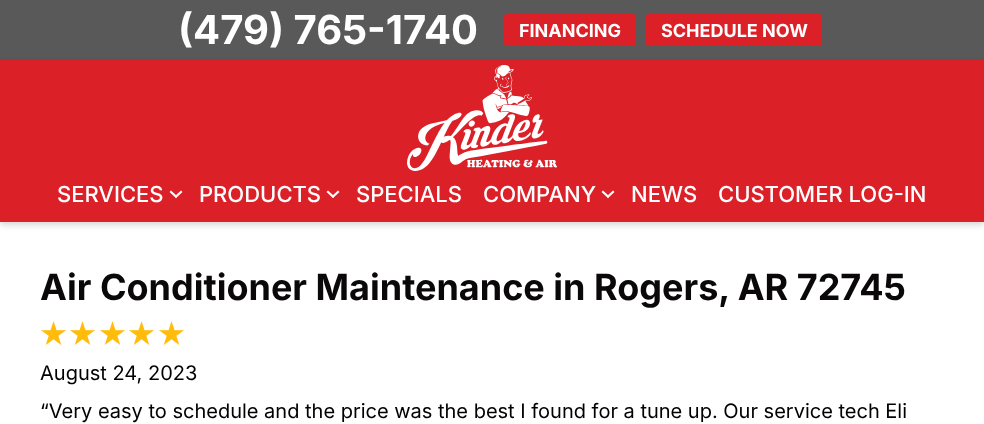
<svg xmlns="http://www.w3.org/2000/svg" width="984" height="424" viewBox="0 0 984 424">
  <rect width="100%" height="100%" fill="rgb(255,255,255)"/>
  <rect x="0" y="0" width="984" height="60" fill="rgb(89,89,89)"/>
  <text x="178" y="44" font-family="Inter" font-size="40" font-weight="bold" fill="rgb(255,255,255)">(479) 765-1740</text>
  <rect x="504" y="14" width="132" height="32" rx="3" fill="rgb(220,32,40)"/>
  <text x="519" y="37" font-family="Inter" font-size="18" font-weight="bold" fill="rgb(255,255,255)">FINANCING</text>
  <rect x="646" y="14" width="176" height="32" rx="3" fill="rgb(220,32,40)"/>
  <text x="661" y="37" font-family="Inter" font-size="18" font-weight="bold" fill="rgb(255,255,255)">SCHEDULE NOW</text>
  <rect x="0" y="63" width="984" height="162" fill="rgba(0,0,0,0.16)" filter="blur(3px)"/>
  <rect x="0" y="60" width="984" height="162" fill="rgb(220,32,40)"/>
  <image x="407" y="65" width="150" height="106" href="pic1.png"/>
  <text x="57" y="202" font-family="Inter" font-size="22" font-weight="500" fill="rgb(255,255,255)">SERVICES</text>
  <path d="M181 190.5L182.5 192L176 198L174.5 196.5Z" fill="rgb(255,255,255)"/>
  <path d="M171 190.5L177.5 196.5L176 198L169.5 192Z" fill="rgb(255,255,255)"/>
  <text x="199" y="202" font-family="Inter" font-size="22" font-weight="500" fill="rgb(255,255,255)">PRODUCTS</text>
  <path d="M338 190.5L339.5 192L333 198L331.5 196.5Z" fill="rgb(255,255,255)"/>
  <path d="M328 190.5L334.5 196.5L333 198L326.5 192Z" fill="rgb(255,255,255)"/>
  <g font-family="Inter" font-size="22" font-weight="500" fill="rgb(255,255,255)">
    <text x="356" y="202">SPECIALS</text>
    <text x="483" y="202">COMPANY</text>
  </g>
  <path d="M613 190.5L614.5 192L608 198L606.5 196.5Z" fill="rgb(255,255,255)"/>
  <path d="M603 190.5L609.5 196.5L608 198L601.5 192Z" fill="rgb(255,255,255)"/>
  <g font-family="Inter" font-size="22" font-weight="500" fill="rgb(255,255,255)">
    <text x="631" y="202">NEWS</text>
    <text x="718" y="202">CUSTOMER LOG-IN</text>
  </g>
  <text x="40" y="300" font-family="Inter" font-size="36" font-weight="bold" fill="rgb(10,8,8)">Air Conditioner Maintenance in Rogers, AR 72745</text>
  <image x="41" y="321" width="25" height="24" href="pic2.png"/>
  <image x="70" y="321" width="25" height="24" href="pic2.png"/>
  <image x="100" y="321" width="25" height="24" href="pic2.png"/>
  <image x="129" y="321" width="25" height="24" href="pic2.png"/>
  <image x="159" y="321" width="25" height="24" href="pic2.png"/>
  <g font-family="Inter" font-size="20" fill="rgb(0,0,0)">
    <text>
      <tspan x="40" y="380">August 24, 2023</tspan>
      <tspan x="40" y="418">“Very easy to schedule and the price was the best I found for a tune up. Our service tech Eli</tspan>
    </text>
  </g>
</svg>
